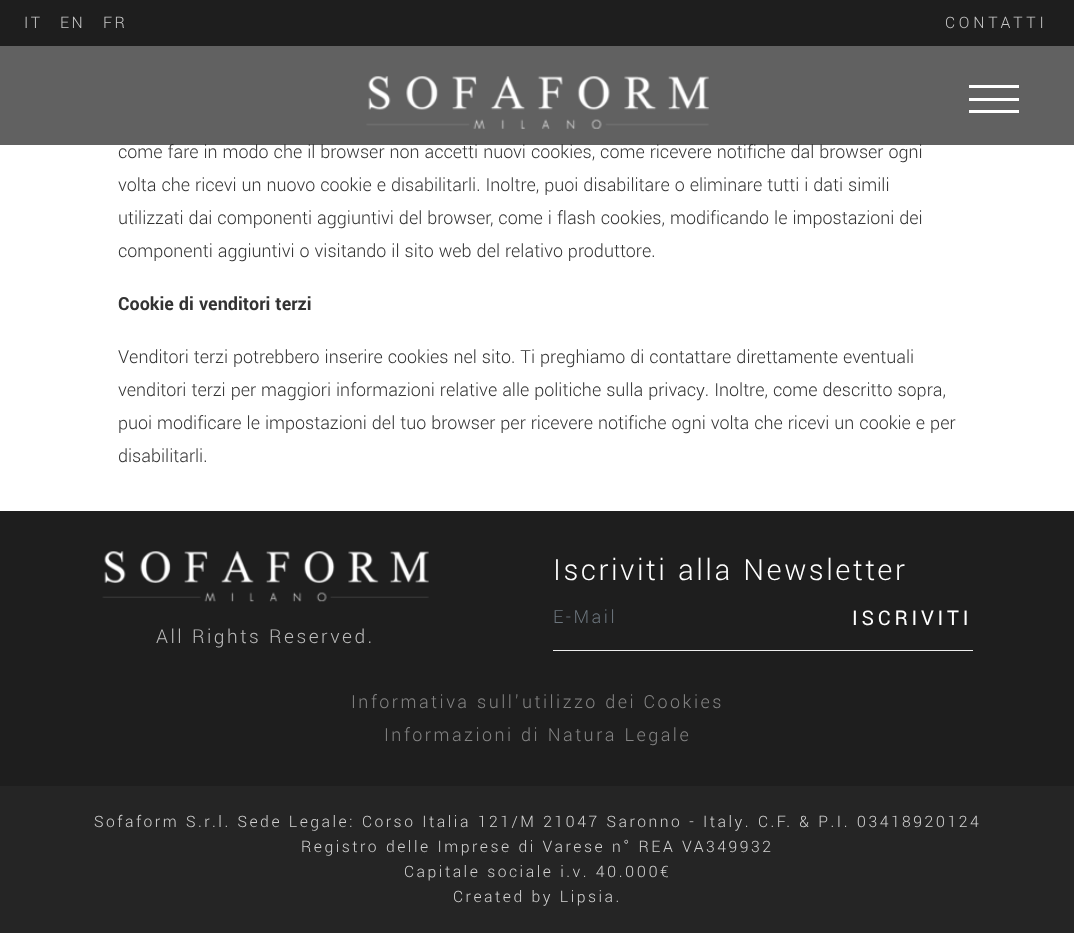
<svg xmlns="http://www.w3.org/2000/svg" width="1074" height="933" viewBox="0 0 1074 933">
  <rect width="100%" height="100%" fill="rgb(255,255,255)"/>
  <rect x="0" y="0" width="1074" height="46" fill="rgb(30,30,30)"/>
  <g font-family="Yantramanav" font-size="17.5" font-weight="300" letter-spacing="2.5" fill="rgb(199,199,199)">
    <text x="24" y="28">IT</text>
    <text x="60" y="28">EN</text>
    <text x="103" y="28">FR</text>
  </g>
  <text x="945" y="28" font-family="Yantramanav" font-size="17.5" font-weight="300" letter-spacing="3.75" fill="rgb(199,199,199)">CONTATTI</text>
  <text x="118" y="158" font-family="Yantramanav" font-size="20" font-weight="300" fill="rgb(51,51,51)">come fare in modo che il browser non accetti nuovi cookies, come ricevere notifiche dal browser ogni</text>
  <rect x="0" y="46" width="1074" height="99" fill="rgba(30,30,30,0.7)"/>
  <image x="366" y="76" width="343" height="53" href="pic1.png"/>
  <rect x="969" y="85" width="50" height="3" fill="rgb(255,255,255)"/>
  <rect x="969" y="98" width="50" height="3" fill="rgb(255,255,255)"/>
  <rect x="969" y="110" width="50" height="3" fill="rgb(255,255,255)"/>
  <g font-family="Yantramanav" font-size="20" font-weight="300" fill="rgb(51,51,51)">
    <text>
      <tspan x="118" y="191">volta che ricevi un nuovo cookie e disabilitarli. Inoltre, puoi disabilitare o eliminare tutti i dati simili</tspan>
      <tspan x="118" y="224">utilizzati dai componenti aggiuntivi del browser, come i flash cookies, modificando le impostazioni dei</tspan>
      <tspan x="118" y="257">componenti aggiuntivi o visitando il sito web del relativo produttore.</tspan>
    </text>
  </g>
  <text x="118" y="310" font-family="Yantramanav" font-size="20" font-weight="bold" fill="rgb(51,51,51)">Cookie di venditori terzi</text>
  <g font-family="Yantramanav" font-size="20" font-weight="300" fill="rgb(51,51,51)">
    <text>
      <tspan x="118" y="363">Venditori terzi potrebbero inserire cookies nel sito. Ti preghiamo di contattare direttamente eventuali</tspan>
      <tspan x="118" y="396">venditori terzi per maggiori informazioni relative alle politiche sulla privacy. Inoltre, come descritto sopra,</tspan>
      <tspan x="118" y="429">puoi modificare le impostazioni del tuo browser per ricevere notifiche ogni volta che ricevi un cookie e per</tspan>
      <tspan x="118" y="462">disabilitarli.</tspan>
    </text>
  </g>
  <rect x="0" y="511" width="1074" height="275" fill="rgb(30,30,30)"/>
  <text x="553" y="580" font-family="Yantramanav" font-size="32.5" font-weight="300" letter-spacing="2.5" fill="rgb(255,255,255)">Iscriviti alla Newsletter</text>
  <rect x="553" y="650" width="420" height="1" fill="rgb(238,238,238)"/>
  <text x="553" y="623" font-family="Yantramanav" font-size="20" font-weight="300" letter-spacing="2.5" fill="rgb(108,117,125)">E-Mail</text>
  <text x="852" y="625" font-family="Yantramanav" font-size="22.5" letter-spacing="3.75" fill="rgb(255,255,255)">ISCRIVITI</text>
  <image x="102" y="551" width="327" height="51" href="pic2.png"/>
  <text x="156" y="643" font-family="Yantramanav" font-size="21.25" font-weight="300" letter-spacing="2.5" fill="rgb(188,188,188)">All Rights Reserved.</text>
  <g font-family="Yantramanav" font-size="20" font-weight="300" letter-spacing="2.5" fill="rgb(131,131,131)">
    <text x="351" y="708">Informativa sull'utilizzo dei Cookies</text>
    <text x="384" y="741">Informazioni di Natura Legale</text>
  </g>
  <rect x="0" y="786" width="1074" height="147" fill="rgb(37,37,37)"/>
  <g font-family="Yantramanav" font-size="17.5" font-weight="300" letter-spacing="2.5" fill="rgb(210,210,210)">
    <text x="94" y="827">Sofaform S.r.l. Sede Legale: Corso Italia 121/M 21047 Saronno - Italy. C.F. &amp; P.I. 03418920124</text>
    <text x="301" y="852">Registro delle Imprese di Varese n° REA VA349932</text>
    <text x="404" y="877">Capitale sociale i.v. 40.000€</text>
    <text x="453" y="902">Created by Lipsia.</text>
  </g>
</svg>
